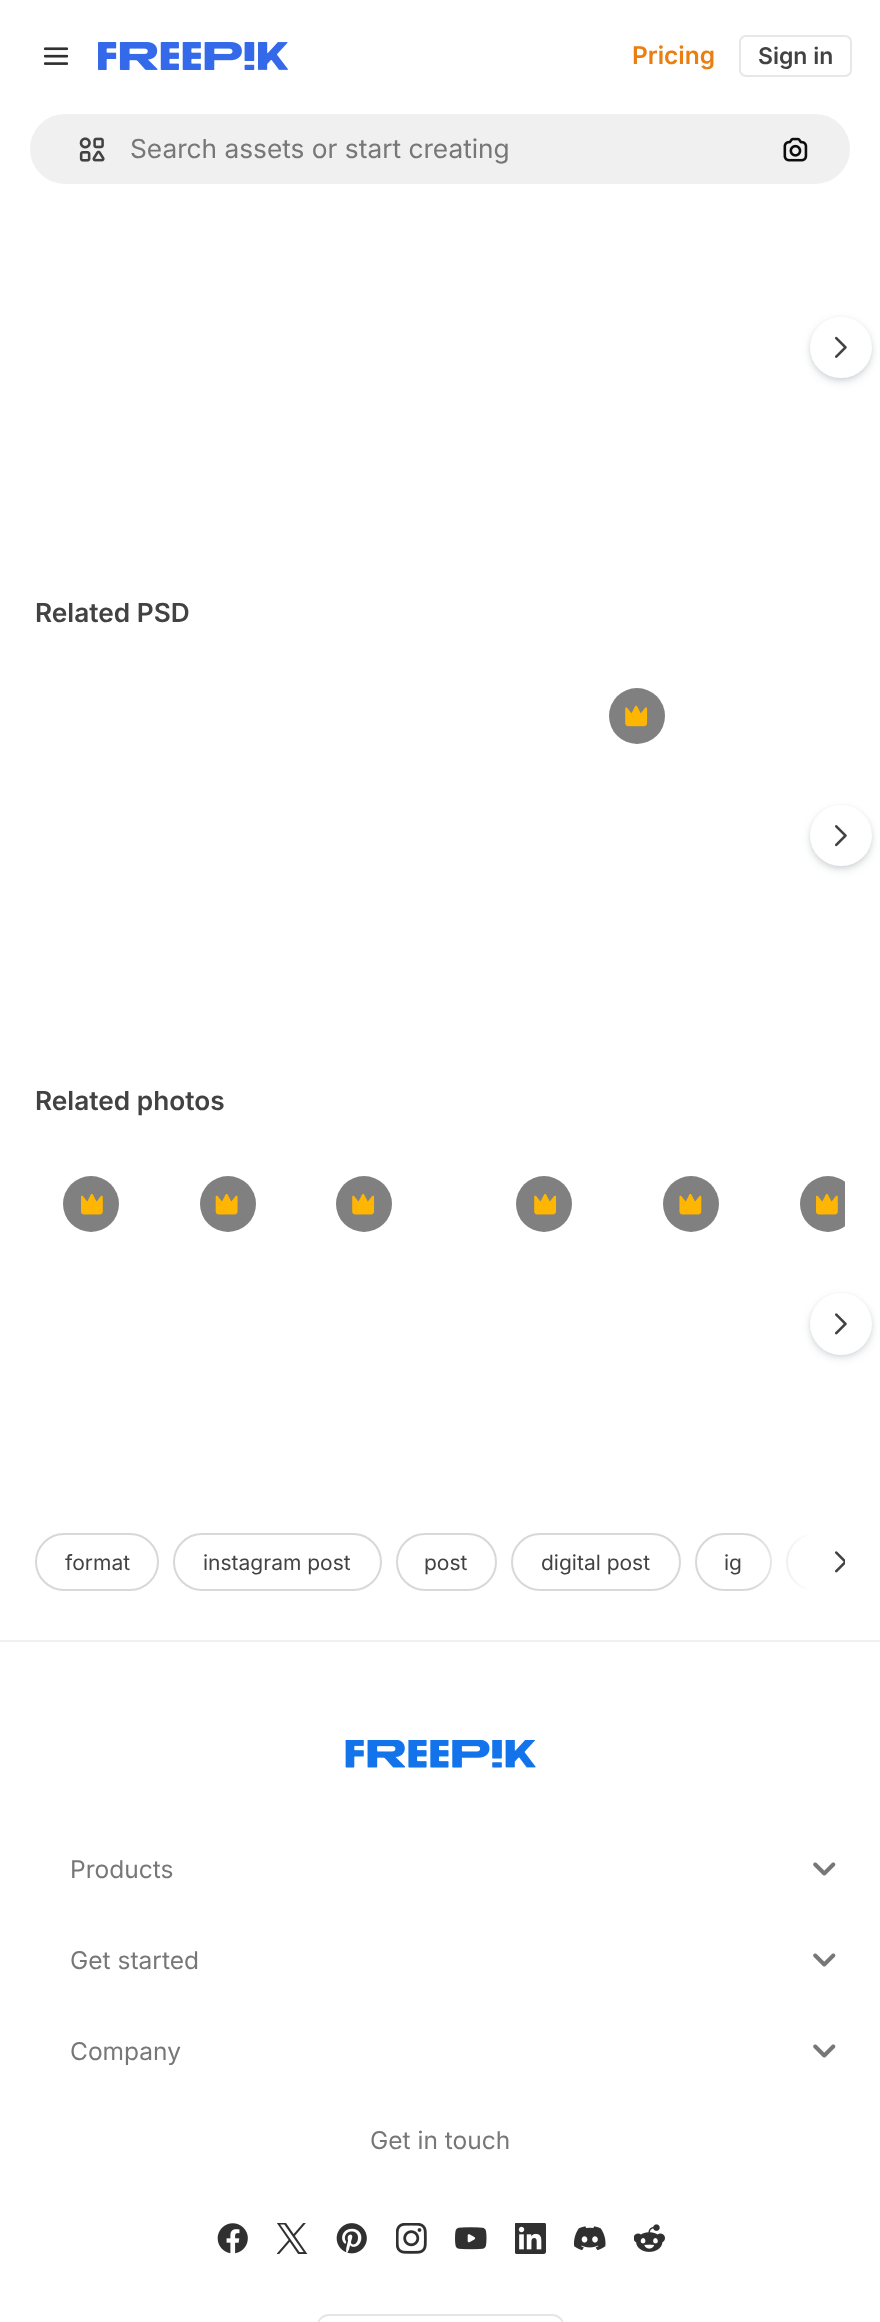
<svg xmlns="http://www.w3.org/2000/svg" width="880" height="2322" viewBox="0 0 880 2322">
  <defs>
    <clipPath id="clip1"><rect x="35" y="1148" width="810" height="350"/></clipPath>
    <clipPath id="clip2"><rect x="35" y="1533" width="810" height="58"/></clipPath>
    <linearGradient id="g1" gradientUnits="userSpaceOnUse" x1="810" y1="1562" x2="749" y2="1562"><stop offset="0" stop-color="rgb(255,255,255)"/><stop offset="1" stop-color="rgb(255,255,255)" stop-opacity="0"/></linearGradient>
  </defs>
  <rect width="100%" height="100%" fill="rgb(255,255,255)"/>
  <image x="44" y="47" width="24" height="18" href="pic1.png"/>
  <image x="98" y="42" width="190" height="28" href="pic2.png"/>
  <text x="632" y="64" font-family="Inter" font-size="24.5" font-weight="600" fill="rgb(234,126,17)">Pricing</text>
  <rect x="740" y="36" width="111" height="40" rx="6" fill="none" stroke="rgb(231,231,231)" stroke-width="2"/>
  <text x="758" y="64" font-family="Inter" font-size="23" font-weight="600" fill="rgb(66,66,66)">Sign in</text>
  <rect x="29" y="113" width="822" height="72" rx="36" fill="rgb(240,240,240)" stroke="rgb(255,255,255)" stroke-width="2"/>
  <image x="79" y="137" width="26" height="25" href="pic3.png"/>
  <text x="130" y="158" font-family="Inter" font-size="26.25" fill="rgb(119,119,119)">Search assets or start creating</text>
  <image x="783" y="137" width="25" height="25" href="pic4.png"/>
  <rect x="810" y="320" width="62" height="62" rx="31" fill="rgba(55,73,87,0.15)" filter="blur(4.5px)"/>
  <rect x="810" y="319" width="62" height="61" rx="30.5" fill="rgba(55,73,87,0.1)" filter="blur(2px)"/>
  <rect x="810" y="317" width="62" height="61" rx="30.5" fill="rgb(255,255,255)"/>
  <image x="835" y="336" width="12" height="22" href="pic5.png"/>
  <text x="35" y="622" font-family="Inter" font-size="26.25" font-weight="600" fill="rgb(66,66,66)">Related PSD</text>
  <circle cx="637" cy="716" r="28" fill="rgb(128,128,128)"/>
  <image x="625" y="705" width="23" height="22" href="pic6.png"/>
  <rect x="810" y="809" width="62" height="61" rx="30.5" fill="rgba(55,73,87,0.15)" filter="blur(4.5px)"/>
  <rect x="810" y="807" width="62" height="61" rx="30.5" fill="rgba(55,73,87,0.1)" filter="blur(2px)"/>
  <rect x="810" y="805" width="62" height="61" rx="30.5" fill="rgb(255,255,255)"/>
  <image x="835" y="825" width="12" height="22" href="pic7.png"/>
  <text x="35" y="1110" font-family="Inter" font-size="26.25" font-weight="600" fill="rgb(66,66,66)">Related photos</text>
  <circle cx="91" cy="1204" r="28" fill="rgb(128,128,128)"/>
  <image x="81" y="1194" width="22" height="21" href="pic8.png"/>
  <circle cx="228" cy="1204" r="28" fill="rgb(128,128,128)"/>
  <image x="215" y="1194" width="23" height="21" href="pic9.png"/>
  <circle cx="364" cy="1204" r="28" fill="rgb(128,128,128)"/>
  <image x="352" y="1194" width="23" height="21" href="pic10.png"/>
  <circle cx="544" cy="1204" r="28" fill="rgb(128,128,128)"/>
  <image x="534" y="1194" width="23" height="21" href="pic10.png"/>
  <circle cx="691" cy="1204" r="28" fill="rgb(128,128,128)"/>
  <image x="679" y="1194" width="23" height="21" href="pic11.png"/>
  <g clip-path="url(#clip1)">
    <circle cx="828" cy="1204" r="28" fill="rgb(128,128,128)"/>
  </g>
  <image x="816" y="1194" width="22" height="21" href="pic8.png"/>
  <rect x="810" y="1297" width="62" height="61" rx="30.5" fill="rgba(55,73,87,0.15)" filter="blur(4.5px)"/>
  <rect x="810" y="1295" width="62" height="61" rx="30.5" fill="rgba(55,73,87,0.1)" filter="blur(2px)"/>
  <circle cx="841" cy="1324" r="31" fill="rgb(255,255,255)"/>
  <image x="835" y="1313" width="12" height="22" href="pic12.png"/>
  <rect x="36" y="1534" width="122" height="56" rx="28" fill="none" stroke="rgb(216,216,216)" stroke-width="2"/>
  <text x="65" y="1570" font-family="Inter" font-size="21" fill="rgb(66,66,66)">format</text>
  <rect x="174" y="1534" width="207" height="56" rx="28" fill="none" stroke="rgb(216,216,216)" stroke-width="2"/>
  <text x="203" y="1570" font-family="Inter" font-size="21" fill="rgb(66,66,66)">instagram post</text>
  <rect x="397" y="1534" width="99" height="56" rx="28" fill="none" stroke="rgb(216,216,216)" stroke-width="2"/>
  <text x="424" y="1570" font-family="Inter" font-size="21" fill="rgb(66,66,66)">post</text>
  <rect x="512" y="1534" width="168" height="56" rx="28" fill="none" stroke="rgb(216,216,216)" stroke-width="2"/>
  <text x="541" y="1570" font-family="Inter" font-size="21" fill="rgb(66,66,66)">digital post</text>
  <rect x="696" y="1534" width="75" height="56" rx="28" fill="none" stroke="rgb(216,216,216)" stroke-width="2"/>
  <text x="724" y="1570" font-family="Inter" font-size="21" fill="rgb(66,66,66)">ig</text>
  <g clip-path="url(#clip2)">
    <rect x="787" y="1534" width="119" height="56" rx="28" fill="none" stroke="rgb(216,216,216)" stroke-width="2"/>
  </g>
  <rect x="810" y="1533" width="35" height="58" fill="rgb(255,255,255)"/>
  <rect x="753" y="1533" width="57" height="58" fill="url(#g1)"/>
  <image x="835" y="1551" width="10" height="22" href="pic13.png"/>
  <rect x="0" y="1640" width="880" height="2" fill="rgb(240,240,240)"/>
  <image x="345" y="1740" width="191" height="28" href="pic14.png"/>
  <text x="70" y="1878" font-family="Inter" font-size="24.5" fill="rgb(119,119,119)">Products</text>
  <image x="813" y="1862" width="23" height="14" href="pic15.png"/>
  <text x="70" y="1969" font-family="Inter" font-size="24.5" fill="rgb(119,119,119)">Get started</text>
  <image x="813" y="1953" width="23" height="14" href="pic15.png"/>
  <text x="70" y="2060" font-family="Inter" font-size="24.5" fill="rgb(119,119,119)">Company</text>
  <image x="813" y="2044" width="23" height="14" href="pic15.png"/>
  <text x="370" y="2149" font-family="Inter" font-size="24.5" fill="rgb(119,119,119)">Get in touch</text>
  <image x="217" y="2223" width="31" height="31" href="pic16.png"/>
  <image x="277" y="2223" width="31" height="31" href="pic17.png"/>
  <image x="336" y="2223" width="31" height="31" href="pic18.png"/>
  <image x="396" y="2223" width="31" height="31" href="pic19.png"/>
  <image x="455" y="2227" width="32" height="23" href="pic20.png"/>
  <image x="515" y="2223" width="31" height="31" href="pic21.png"/>
  <image x="574" y="2226" width="32" height="25" href="pic22.png"/>
  <image x="634" y="2224" width="31" height="28" href="pic23.png"/>
  <rect x="318" y="2315" width="245" height="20" rx="11" fill="none" stroke="rgb(230,230,230)" stroke-width="2"/>
</svg>
